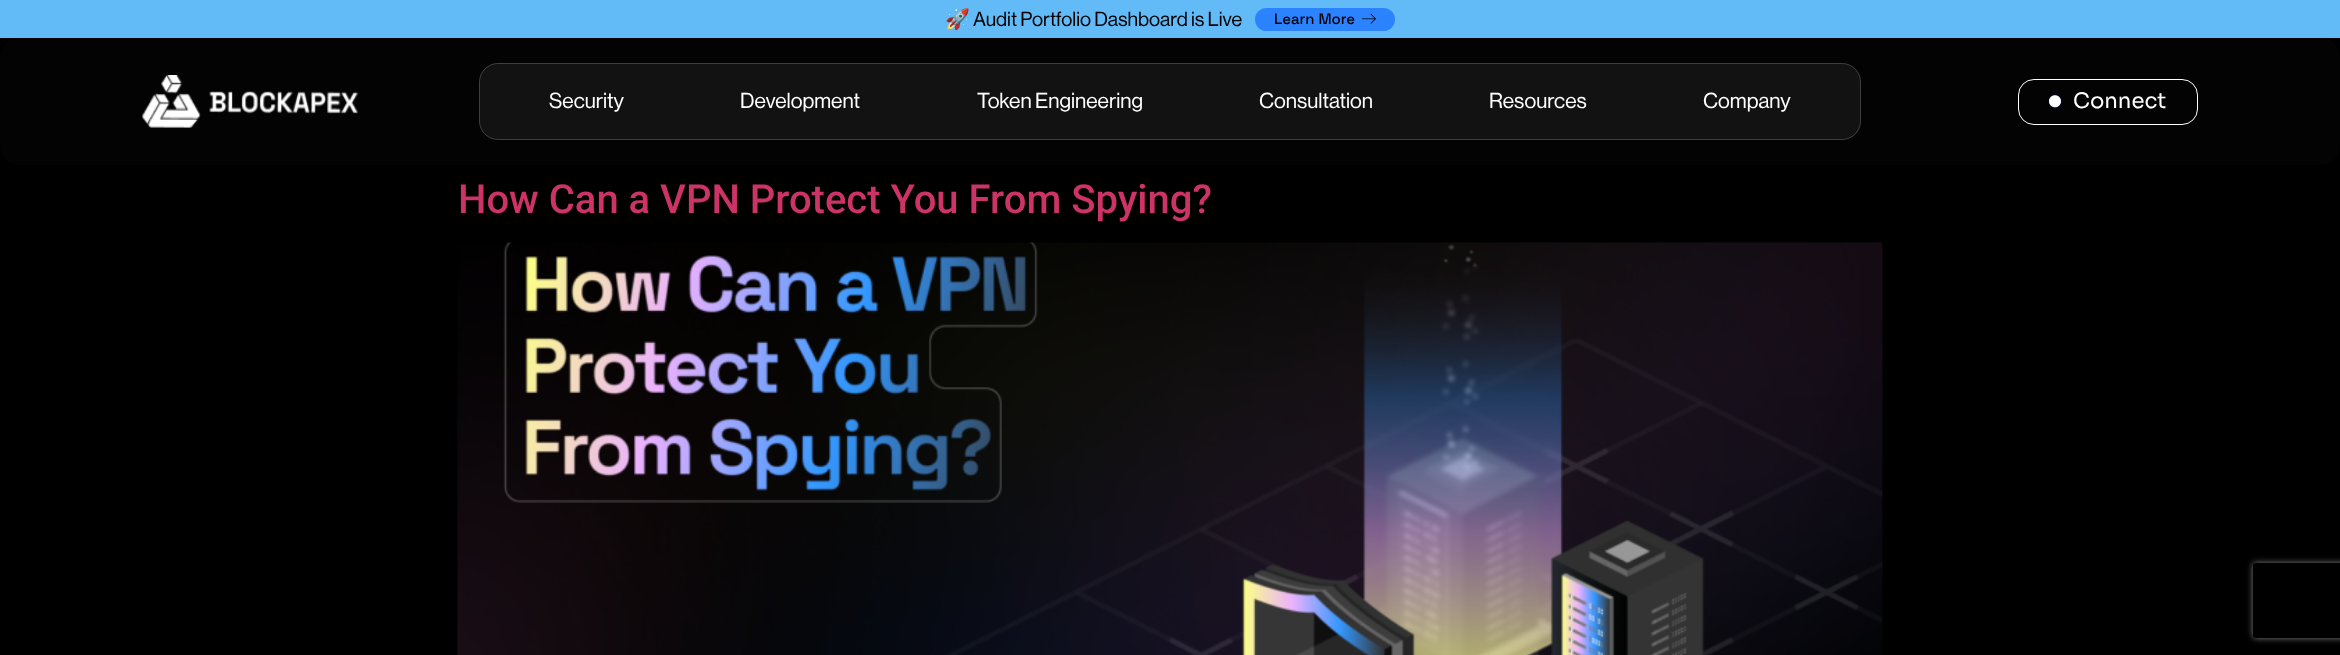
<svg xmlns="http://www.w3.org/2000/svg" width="2340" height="655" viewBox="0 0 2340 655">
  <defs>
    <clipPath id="clip1"><path d="M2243 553H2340V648H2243ZM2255.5 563H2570.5C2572 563 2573 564 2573 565.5V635.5C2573 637 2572 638 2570.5 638H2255.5C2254 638 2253 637 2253 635.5V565.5C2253 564 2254 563 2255.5 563Z" clip-rule="evenodd"/></clipPath>
  </defs>
  <rect width="100%" height="100%" fill="rgb(0,0,0)"/>
  <rect x="0" y="0" width="2340" height="38" fill="rgb(98,186,247)"/>
  <text x="945" y="26" font-family="Noto Color Emoji" font-size="20" fill="rgb(0,0,0)">🚀</text>
  <text x="973" y="26" font-family="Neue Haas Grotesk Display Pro" font-size="20" fill="rgb(0,0,0)">Audit Portfolio Dashboard is Live</text>
  <rect x="1255" y="8" width="140" height="23" rx="11.5" fill="rgb(44,131,255)"/>
  <text x="1274" y="24" font-family="Space Grotesk" font-size="15" font-weight="500" fill="rgb(0,0,0)">Learn More</text>
  <image x="1362" y="14" width="14" height="10" href="pic1.png"/>
  <rect x="0" y="38" width="2340" height="127" rx="19" fill="rgb(3,3,3)"/>
  <image x="142" y="75" width="217" height="53" href="pic2.png"/>
  <rect x="479" y="63" width="1382" height="77" rx="19" fill="rgb(18,18,18)"/>
  <rect x="479.5" y="63.5" width="1381" height="76" rx="18.5" fill="none" stroke="rgba(255,255,255,0.19)"/>
  <g font-family="Neue Haas Grotesk Display Pro" font-size="21.25" fill="rgb(255,255,255)">
    <text x="549" y="108">Security</text>
    <text x="740" y="108">Development</text>
    <text x="977" y="108">Token Engineering</text>
    <text x="1259" y="108">Consultation</text>
    <text x="1489" y="108">Resources</text>
    <text x="1703" y="108">Company</text>
  </g>
  <rect x="2018.5" y="79.5" width="179" height="45" rx="15.5" fill="none" stroke="rgb(255,255,255)"/>
  <rect x="2048" y="94" width="15" height="15" rx="7.5" fill="rgba(0,0,255,0.1)" filter="blur(0.5px)"/>
  <image x="2049" y="95" width="12" height="13" href="pic3.png"/>
  <text x="2073" y="108" font-family="Sora" font-size="21.25" fill="rgb(255,255,255)">Connect</text>
  <text x="458" y="213" font-family="Roboto" font-size="40" font-weight="500" fill="rgb(204,51,102)">How Can a VPN Protect You From Spying?</text>
  <image x="457" y="242" width="1426" height="413" href="pic4.png"/>
  <g clip-path="url(#clip1)">
    <rect x="2253" y="563" width="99" height="75" rx="2.5" fill="rgb(128,128,128)" filter="blur(3px)"/>
  </g>
</svg>
